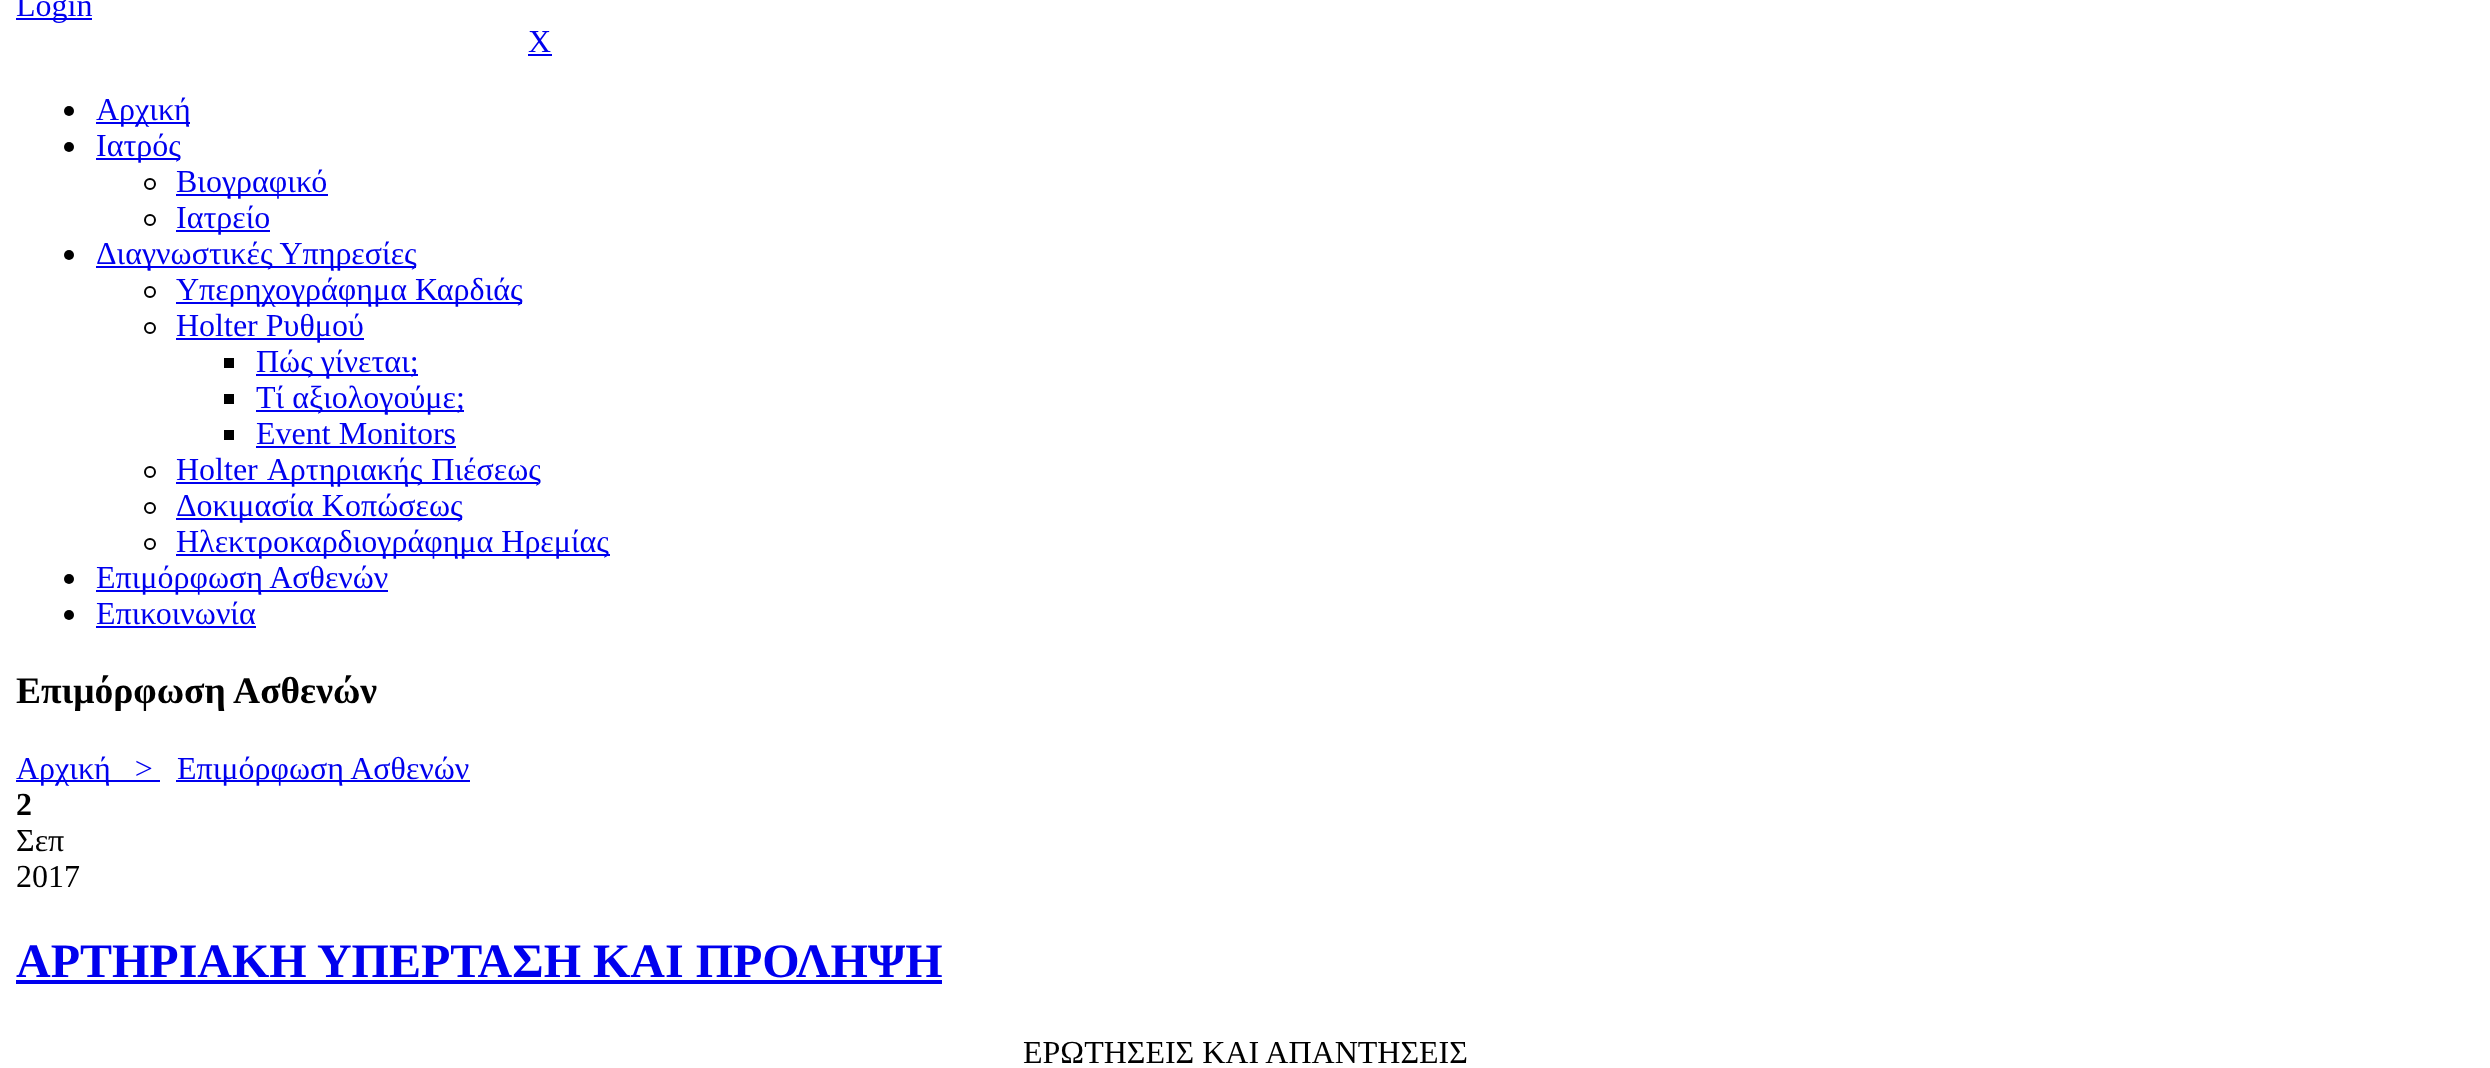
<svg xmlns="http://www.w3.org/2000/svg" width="2490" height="1068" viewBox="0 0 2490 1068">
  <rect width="100%" height="100%" fill="rgb(255,255,255)"/>
  <rect x="16" y="18" width="76" height="2" fill="rgb(0,0,238)"/>
  <g font-family="Liberation Serif" font-size="32" fill="rgb(0,0,238)">
    <text x="16" y="16">Login</text>
    <text x="528" y="52">X</text>
  </g>
  <rect x="528" y="54" width="24" height="2" fill="rgb(0,0,238)"/>
  <circle cx="69" cy="111" r="5" fill="rgb(0,0,0)"/>
  <rect x="96" y="122" width="94" height="2" fill="rgb(0,0,238)"/>
  <text x="96" y="120" font-family="Liberation Serif" font-size="32" fill="rgb(0,0,238)">Αρχική</text>
  <circle cx="69" cy="147" r="5" fill="rgb(0,0,0)"/>
  <rect x="96" y="158" width="84" height="2" fill="rgb(0,0,238)"/>
  <text x="96" y="156" font-family="Liberation Serif" font-size="32" fill="rgb(0,0,238)">Ιατρός</text>
  <circle cx="150" cy="184" r="5" fill="none" stroke="rgb(0,0,0)" stroke-width="2"/>
  <rect x="176" y="194" width="152" height="2" fill="rgb(0,0,238)"/>
  <text x="176" y="192" font-family="Liberation Serif" font-size="32" fill="rgb(0,0,238)">Βιογραφικό</text>
  <circle cx="150" cy="220" r="5" fill="none" stroke="rgb(0,0,0)" stroke-width="2"/>
  <rect x="176" y="230" width="94" height="2" fill="rgb(0,0,238)"/>
  <text x="176" y="228" font-family="Liberation Serif" font-size="32" fill="rgb(0,0,238)">Ιατρείο</text>
  <circle cx="69" cy="255" r="5" fill="rgb(0,0,0)"/>
  <rect x="96" y="266" width="320" height="2" fill="rgb(0,0,238)"/>
  <text x="96" y="264" font-family="Liberation Serif" font-size="32" fill="rgb(0,0,238)">Διαγνωστικές Υπηρεσίες</text>
  <circle cx="150" cy="292" r="5" fill="none" stroke="rgb(0,0,0)" stroke-width="2"/>
  <rect x="176" y="302" width="346" height="2" fill="rgb(0,0,238)"/>
  <text x="176" y="300" font-family="Liberation Serif" font-size="32" fill="rgb(0,0,238)">Υπερηχογράφημα Καρδιάς</text>
  <circle cx="150" cy="328" r="5" fill="none" stroke="rgb(0,0,0)" stroke-width="2"/>
  <rect x="176" y="338" width="188" height="2" fill="rgb(0,0,238)"/>
  <text x="176" y="336" font-family="Liberation Serif" font-size="32" fill="rgb(0,0,238)">Holter Ρυθμού</text>
  <rect x="224" y="358" width="10" height="10" fill="rgb(0,0,0)"/>
  <rect x="256" y="374" width="162" height="2" fill="rgb(0,0,238)"/>
  <text x="256" y="372" font-family="Liberation Serif" font-size="32" fill="rgb(0,0,238)">Πώς γίνεται;</text>
  <rect x="224" y="394" width="10" height="10" fill="rgb(0,0,0)"/>
  <rect x="256" y="410" width="208" height="2" fill="rgb(0,0,238)"/>
  <text x="256" y="408" font-family="Liberation Serif" font-size="32" fill="rgb(0,0,238)">Τί αξιολογούμε;</text>
  <rect x="224" y="430" width="10" height="10" fill="rgb(0,0,0)"/>
  <text x="256" y="444" font-family="Liberation Serif" font-size="32" fill="rgb(0,0,238)">Event Monitors</text>
  <rect x="256" y="446" width="200" height="2" fill="rgb(0,0,238)"/>
  <circle cx="150" cy="472" r="5" fill="none" stroke="rgb(0,0,0)" stroke-width="2"/>
  <rect x="176" y="482" width="362" height="2" fill="rgb(0,0,238)"/>
  <text x="176" y="480" word-spacing="1" font-family="Liberation Serif" font-size="32" fill="rgb(0,0,238)">Holter Αρτηριακής Πιέσεως</text>
  <circle cx="150" cy="508" r="5" fill="none" stroke="rgb(0,0,0)" stroke-width="2"/>
  <rect x="176" y="518" width="286" height="2" fill="rgb(0,0,238)"/>
  <text x="176" y="516" font-family="Liberation Serif" font-size="32" fill="rgb(0,0,238)">Δοκιμασία Κοπώσεως</text>
  <circle cx="150" cy="544" r="5" fill="none" stroke="rgb(0,0,0)" stroke-width="2"/>
  <rect x="176" y="554" width="434" height="2" fill="rgb(0,0,238)"/>
  <text x="176" y="552" font-family="Liberation Serif" font-size="32" fill="rgb(0,0,238)">Ηλεκτροκαρδιογράφημα Ηρεμίας</text>
  <circle cx="69" cy="579" r="5" fill="rgb(0,0,0)"/>
  <rect x="96" y="590" width="292" height="2" fill="rgb(0,0,238)"/>
  <text x="96" y="588" font-family="Liberation Serif" font-size="32" fill="rgb(0,0,238)">Επιμόρφωση Ασθενών</text>
  <circle cx="69" cy="615" r="5" fill="rgb(0,0,0)"/>
  <text x="96" y="624" font-family="Liberation Serif" font-size="32" fill="rgb(0,0,238)">Επικοινωνία</text>
  <rect x="96" y="626" width="160" height="2" fill="rgb(0,0,238)"/>
  <text x="16" y="703" font-family="Liberation Serif" font-size="37.5" font-weight="bold" fill="rgb(0,0,0)">Επιμόρφωση Ασθενών</text>
  <rect x="16" y="780" width="144" height="2" fill="rgb(0,0,238)"/>
  <text x="16" y="779" font-family="Liberation Serif" font-size="32" fill="rgb(0,0,238)" xml:space="preserve">Αρχική   &gt;</text>
  <rect x="176" y="780" width="294" height="2" fill="rgb(0,0,238)"/>
  <text x="177" y="779" font-family="Liberation Serif" font-size="32" fill="rgb(0,0,238)">Επιμόρφωση Ασθενών</text>
  <text x="16" y="815" font-family="Liberation Serif" font-size="32" font-weight="bold" fill="rgb(0,0,0)">2</text>
  <g font-family="Liberation Serif" font-size="32" fill="rgb(0,0,0)">
    <text>
      <tspan x="16" y="851">Σεπ</tspan>
      <tspan x="16" y="887">2017</tspan>
    </text>
  </g>
  <text x="16" y="977" font-family="Liberation Serif" font-size="48" font-weight="bold" fill="rgb(0,0,238)">ΑΡΤΗΡΙΑΚΗ ΥΠΕΡΤΑΣΗ ΚΑΙ ΠΡΟΛΗΨΗ</text>
  <rect x="16" y="980" width="926" height="4" fill="rgb(0,0,238)"/>
  <text x="1023" y="1063" font-family="Liberation Serif" font-size="32" fill="rgb(0,0,0)">ΕΡΩΤΗΣΕΙΣ ΚΑΙ ΑΠΑΝΤΗΣΕΙΣ</text>
</svg>
